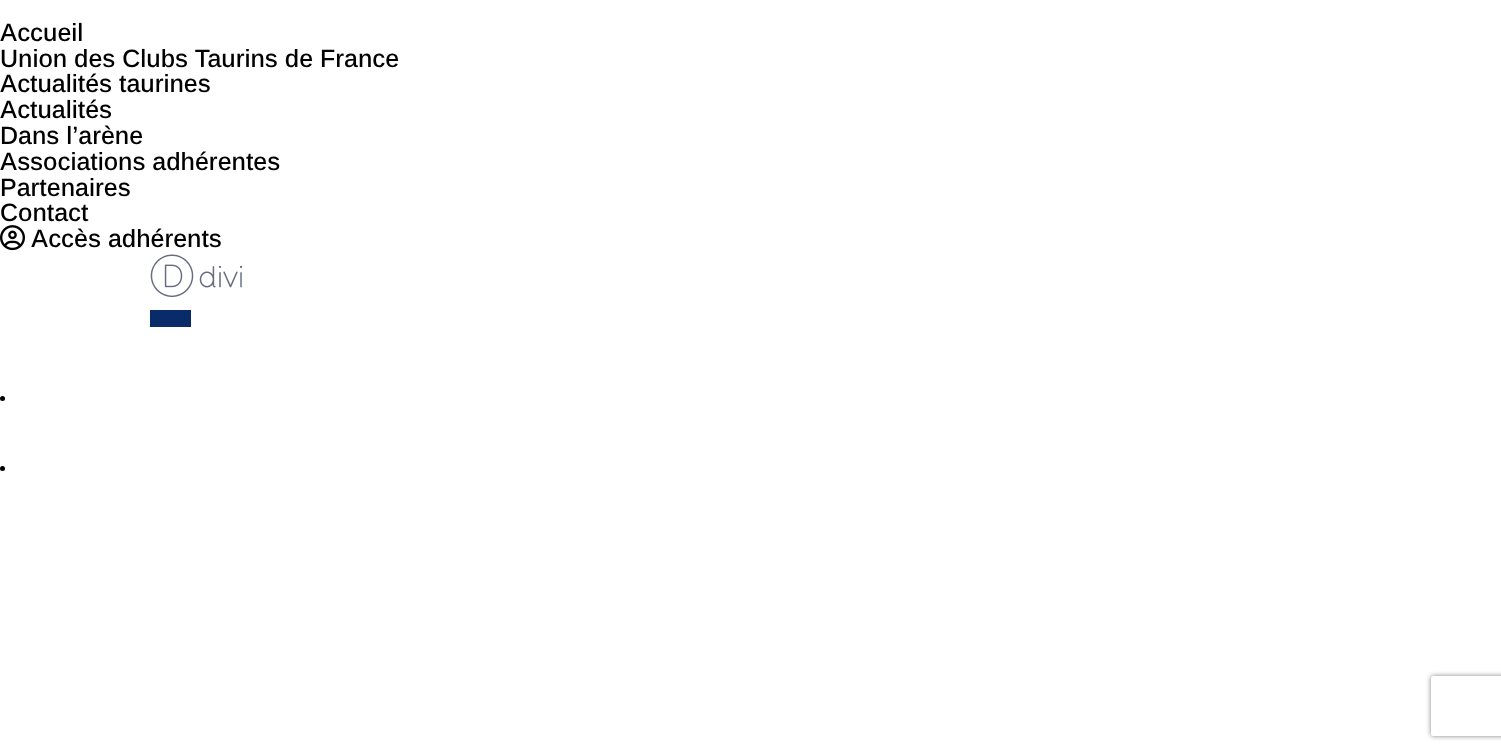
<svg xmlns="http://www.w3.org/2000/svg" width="1501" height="750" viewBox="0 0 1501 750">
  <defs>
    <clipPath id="clip1"><path d="M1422 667H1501V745H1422ZM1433 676H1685C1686 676 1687 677 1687 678V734C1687 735 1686 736 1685 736H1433C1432 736 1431 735 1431 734V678C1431 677 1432 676 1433 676Z" clip-rule="evenodd"/></clipPath>
  </defs>
  <rect width="100%" height="100%" fill="rgb(255,255,255)"/>
  <g font-family="Arimo" font-size="25" font-weight="500" fill="rgb(0,0,0)">
    <text>
      <tspan x="0" y="41">Accueil</tspan>
      <tspan x="0" y="67">Union des Clubs Taurins de France</tspan>
      <tspan x="0" y="92">Actualités taurines</tspan>
      <tspan x="0" y="118">Actualités</tspan>
      <tspan x="0" y="144">Dans l’arène</tspan>
      <tspan x="0" y="170">Associations adhérentes</tspan>
      <tspan x="0" y="196">Partenaires</tspan>
      <tspan x="0" y="221">Contact</tspan>
    </text>
  </g>
  <image x="0" y="225" width="25" height="26" href="pic1.png"/>
  <text x="31" y="247" font-family="Arimo" font-size="25" font-weight="500" fill="rgb(0,0,0)">Accès adhérents</text>
  <image x="150" y="254" width="93" height="43" href="pic2.png"/>
  <rect x="150" y="310" width="41" height="17" fill="rgb(10,43,105)"/>
  <circle cx="2.5" cy="398.5" r="2.5" fill="rgb(0,0,0)"/>
  <circle cx="2.5" cy="468.5" r="2.5" fill="rgb(0,0,0)"/>
  <g clip-path="url(#clip1)">
    <rect x="1431" y="676" width="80" height="60" rx="2" fill="rgb(128,128,128)" filter="blur(2.5px)"/>
  </g>
</svg>
